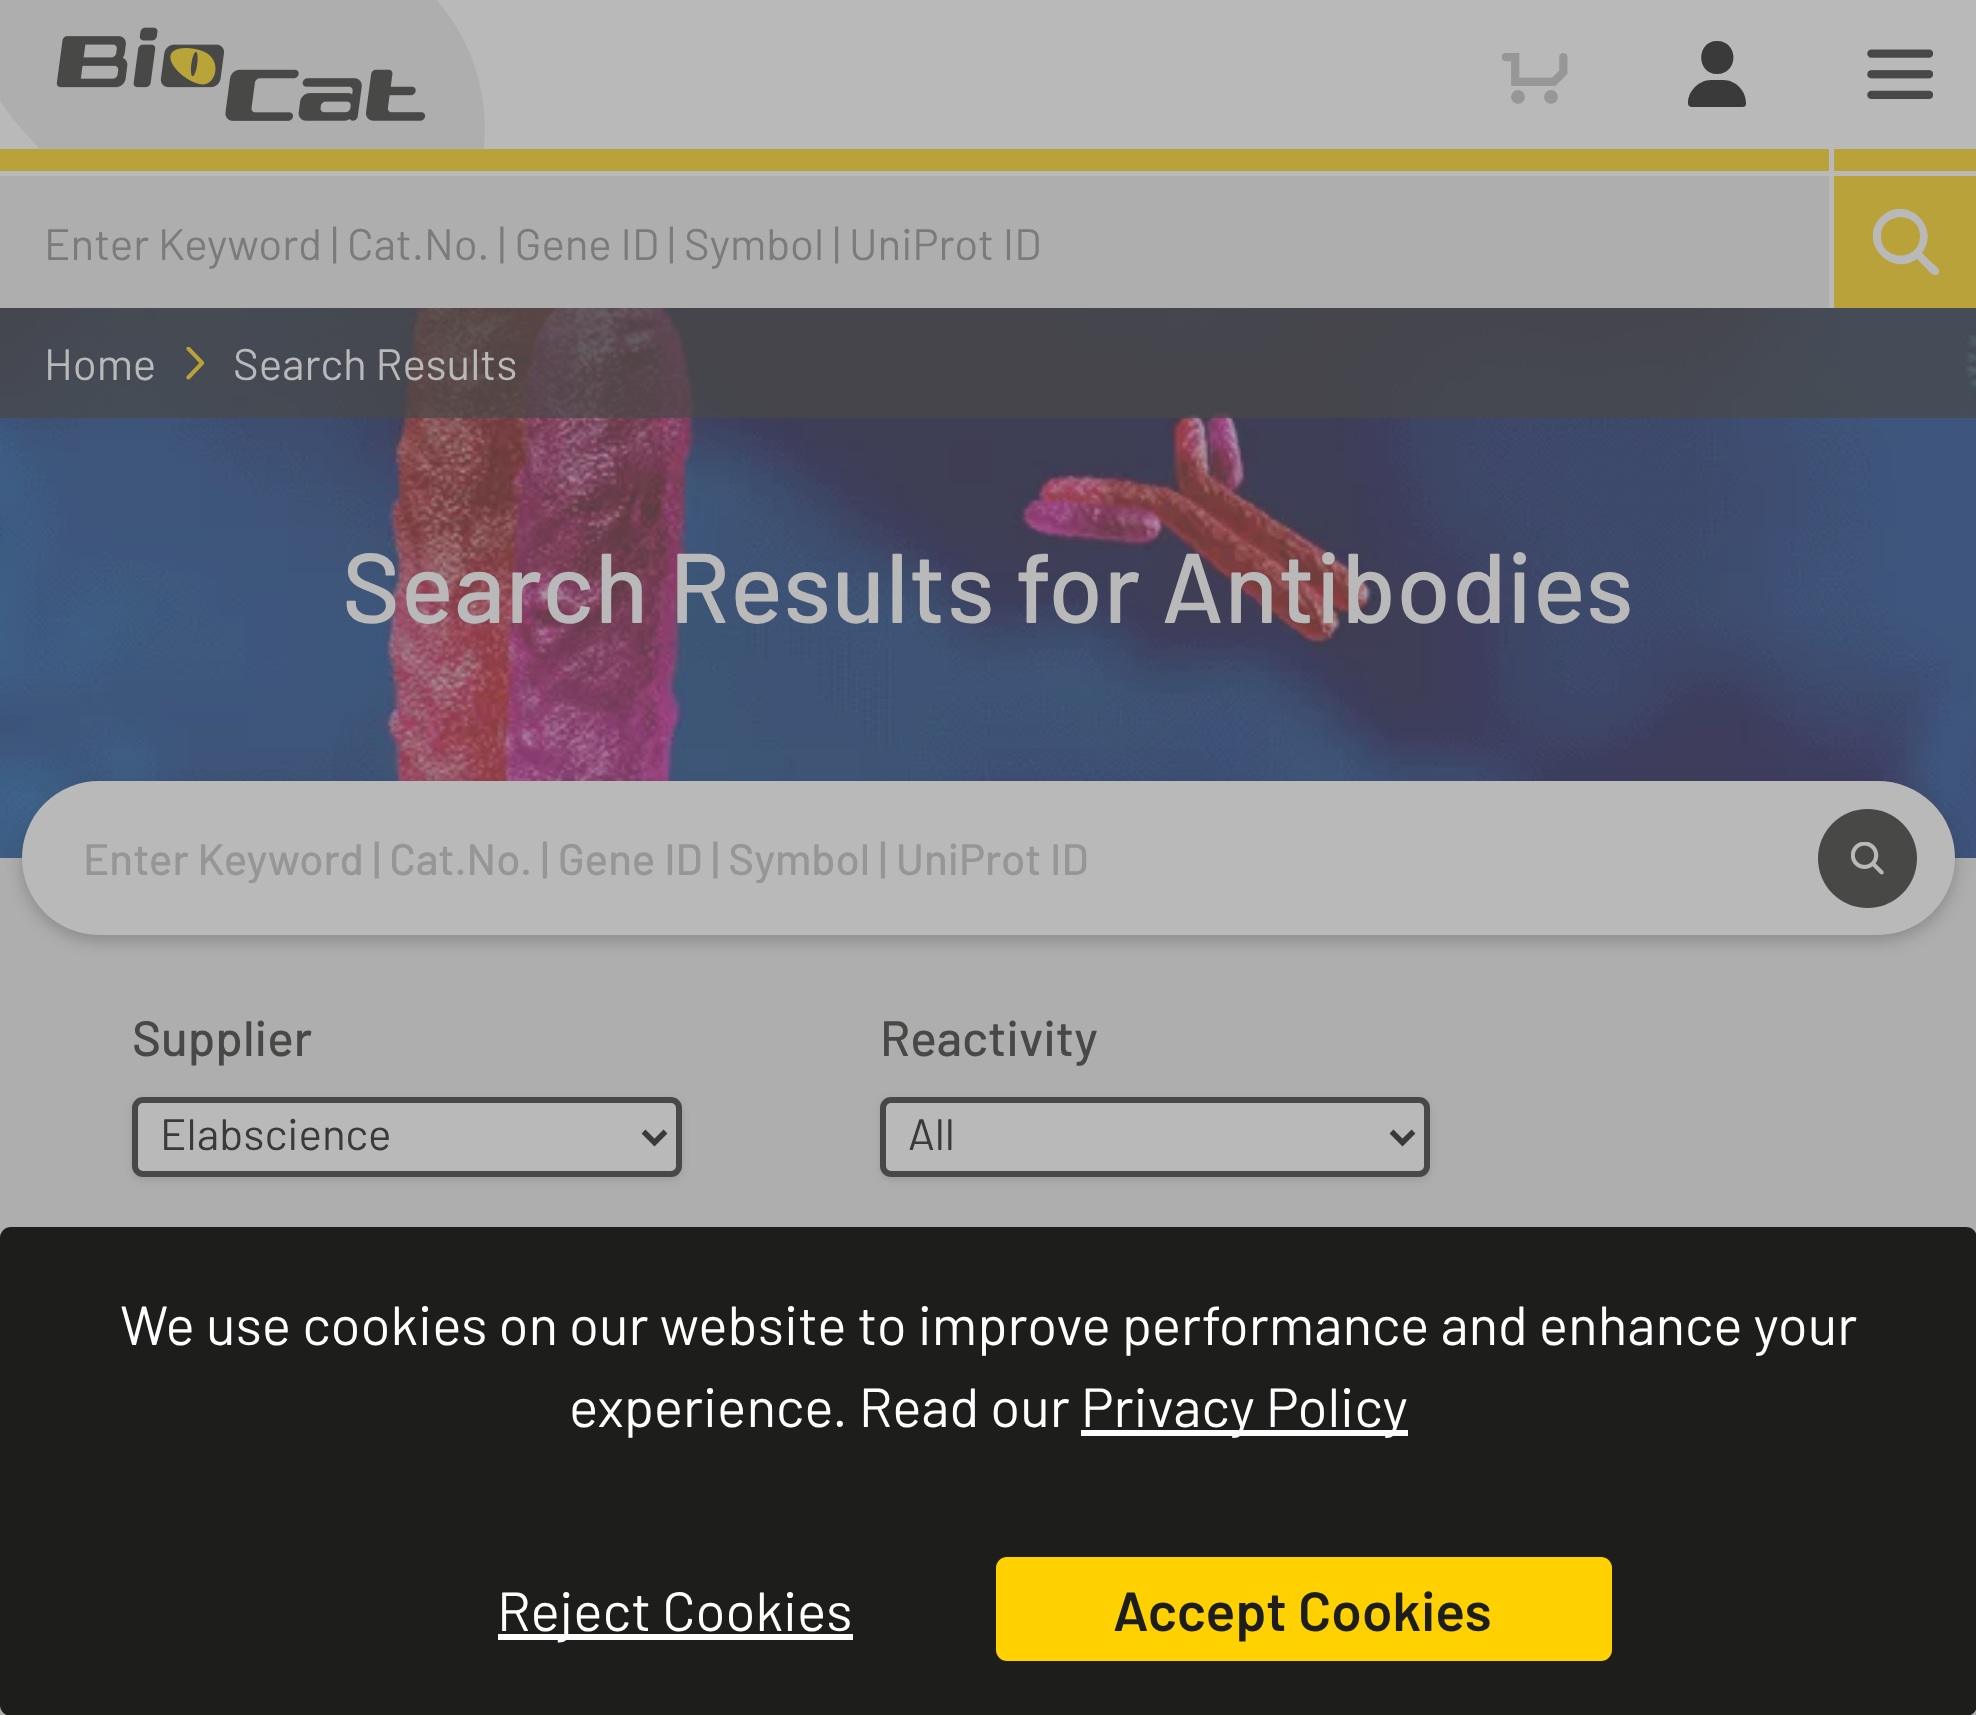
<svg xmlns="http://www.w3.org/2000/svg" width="1976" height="1715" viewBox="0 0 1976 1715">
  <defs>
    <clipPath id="clip1"><rect x="1873" y="209" width="66" height="66"/></clipPath>
    <clipPath id="clip2"><rect x="83" y="831" width="1713" height="52"/></clipPath>
  </defs>
  <rect width="100%" height="100%" fill="rgb(185,185,185)"/>
  <image x="0" y="0" width="485" height="149" href="pic1.png"/>
  <image x="1502" y="52" width="66" height="52" href="pic2.png"/>
  <path d="M1717 74C1739 74 1739 41 1717 41C1696 41 1696 74 1717 74ZM1711 80C1699 80 1688 91 1688 103C1688 106 1690 107 1692 107H1742C1745 107 1746 106 1746 103C1746 91 1736 80 1723 80Z" fill="rgb(58,58,58)"/>
  <image x="1867" y="49" width="66" height="50" href="pic3.png"/>
  <rect x="0" y="149" width="1829" height="22" fill="rgb(185,162,58)"/>
  <rect x="1834" y="149" width="142" height="22" fill="rgb(185,162,58)"/>
  <rect x="0" y="176" width="1829" height="132" fill="rgb(174,174,174)"/>
  <text x="44" y="260" font-family="Barlow" font-size="44" fill="rgb(123,123,123)">Enter Keyword | Cat.No. | Gene ID | Symbol | UniProt ID</text>
  <rect x="1834" y="176" width="142" height="132" fill="rgb(185,162,58)"/>
  <g clip-path="url(#clip1)">
    <path d="M1881 236C1881 262 1920 262 1920 236C1920 211 1881 211 1881 236ZM1922 253L1932 263C1935 265 1942 270 1938 274C1934 278 1929 271 1927 269L1917 259C1890 278 1857 241 1881 217C1905 193 1942 226 1922 253Z" fill="rgb(185,185,185)"/>
  </g>
  <image x="0" y="308" width="1976" height="550" href="pic5.png"/>
  <rect x="0" y="308" width="1976" height="110" fill="rgba(72,72,71,0.7)"/>
  <text x="44" y="380" font-family="Barlow" font-size="44" fill="rgb(185,185,185)">Home</text>
  <image x="186" y="347" width="19" height="33" href="pic4.png"/>
  <text x="233" y="380" font-family="Barlow" font-size="44" fill="rgb(185,185,185)">Search Results</text>
  <text x="342" y="623" font-family="Barlow" font-size="99" font-weight="500" letter-spacing="0.55" fill="rgb(185,185,185)">Search Results for Antibodies</text>
  <rect x="0" y="858" width="1976" height="857" fill="rgb(174,174,174)"/>
  <rect x="22" y="787" width="1933" height="154" rx="77" fill="rgba(58,58,58,0.3)" filter="blur(8px)"/>
  <rect x="25" y="784" width="1927" height="148" rx="74" fill="rgb(185,185,185)" stroke="rgb(185,185,185)" stroke-width="6"/>
  <g clip-path="url(#clip2)">
    <text x="83" y="875" font-family="Barlow" font-size="44" font-weight="500" fill="rgb(150,150,150)">Enter Keyword | Cat.No. | Gene ID | Symbol | UniProt ID</text>
  </g>
  <circle cx="1867.5" cy="858.5" r="49.5" fill="rgb(72,72,71)"/>
  <image x="1851" y="842" width="33" height="33" href="pic6.png"/>
  <text x="132" y="1056" font-family="Barlow" font-size="49.5" font-weight="500" fill="rgb(72,72,71)">Supplier</text>
  <rect x="135" y="1103" width="544" height="74" rx="8" fill="rgba(58,58,58,0.1)" filter="blur(3px)"/>
  <rect x="132" y="1100" width="550" height="80" rx="11" fill="rgba(58,58,58,0.1)" filter="blur(4px)"/>
  <rect x="135" y="1100" width="544" height="74" rx="8" fill="rgb(185,185,185)" stroke="rgb(72,72,71)" stroke-width="6"/>
  <path d="M643.5 1131.5L654.5 1142.5L665.5 1131.5" fill="none" stroke="rgb(58,58,58)" stroke-width="5.5"/>
  <text x="160" y="1150" font-family="Barlow" font-size="44" fill="rgb(58,58,58)">Elabscience</text>
  <text x="880" y="1056" font-family="Barlow" font-size="49.5" font-weight="500" fill="rgb(72,72,71)">Reactivity</text>
  <rect x="883" y="1103" width="544" height="74" rx="8" fill="rgba(58,58,58,0.1)" filter="blur(3px)"/>
  <rect x="880" y="1100" width="550" height="80" rx="11" fill="rgba(58,58,58,0.1)" filter="blur(4px)"/>
  <rect x="883" y="1100" width="544" height="74" rx="8" fill="rgb(185,185,185)" stroke="rgb(72,72,71)" stroke-width="6"/>
  <path d="M1391.5 1131.5L1402.5 1142.5L1413.5 1131.5" fill="none" stroke="rgb(58,58,58)" stroke-width="5.5"/>
  <text x="908" y="1150" font-family="Barlow" font-size="44" fill="rgb(58,58,58)">All</text>
  <rect x="0" y="1227" width="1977" height="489" rx="11" fill="rgb(29,29,27)"/>
  <g font-family="Barlow" font-size="55" fill="rgb(255,255,255)">
    <text x="120" y="1345">We use cookies on our website to improve performance and enhance your</text>
    <text x="569" y="1427">experience. Read our</text>
  </g>
  <rect x="1081" y="1430" width="327" height="6" fill="rgb(255,255,255)"/>
  <text x="1081" y="1427" font-family="Barlow" font-size="55" fill="rgb(255,255,255)">Privacy Policy</text>
  <rect x="498" y="1634" width="355" height="6" fill="rgb(255,255,255)"/>
  <text x="497" y="1631" font-family="Barlow" font-size="55" fill="rgb(255,255,255)">Reject Cookies</text>
  <rect x="996" y="1557" width="616" height="104" rx="11" fill="rgb(255,209,0)"/>
  <text x="1113" y="1631" font-family="Barlow" font-size="55" font-weight="600" fill="rgb(29,29,27)">Accept Cookies</text>
</svg>
